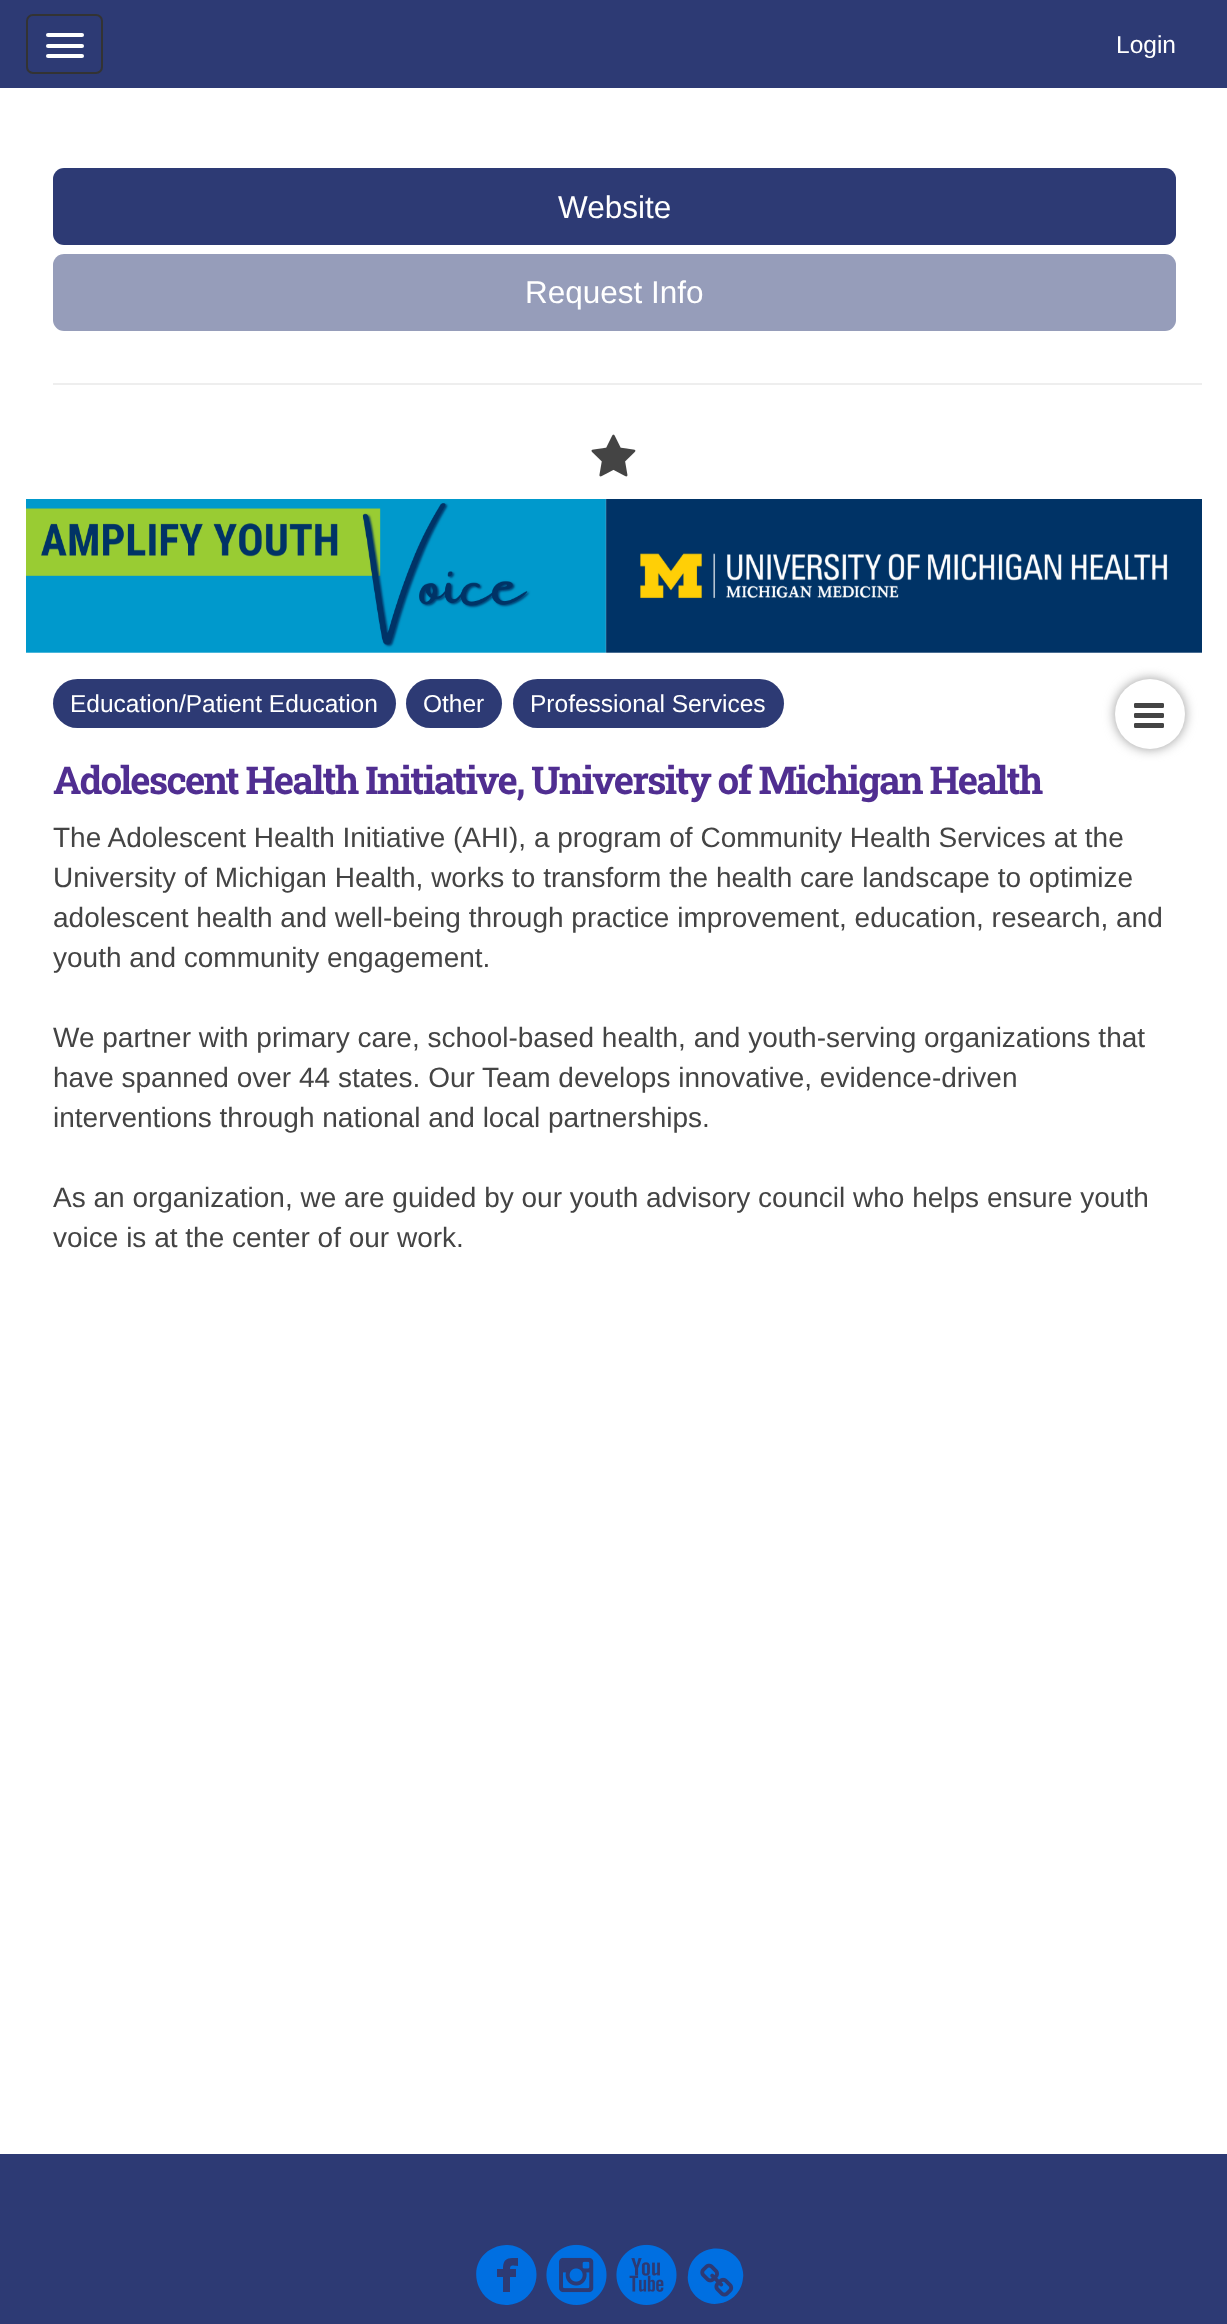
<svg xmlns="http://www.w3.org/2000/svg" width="1227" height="2324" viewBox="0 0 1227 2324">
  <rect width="100%" height="100%" fill="rgb(255,255,255)"/>
  <rect x="0" y="0" width="1227" height="88" fill="rgb(45,58,116)"/>
  <rect x="27" y="15" width="75" height="58" rx="6" fill="none" stroke="rgb(51,51,51)" stroke-width="2"/>
  <rect x="46" y="33" width="38" height="4" rx="2" fill="rgb(255,255,255)"/>
  <rect x="46" y="44" width="38" height="4" rx="2" fill="rgb(255,255,255)"/>
  <rect x="46" y="54" width="38" height="4" rx="2" fill="rgb(255,255,255)"/>
  <text x="1116" y="53" font-family="Liberation Sans" font-size="24.5" fill="rgb(255,255,255)">Login</text>
  <rect x="53" y="168" width="1123" height="77" rx="11" fill="rgb(45,58,116)"/>
  <text x="558" y="218" font-family="Liberation Sans" font-size="31.5" fill="rgb(255,255,255)">Website</text>
  <rect x="53" y="254" width="1123" height="77" rx="11" fill="rgb(150,157,186)"/>
  <text x="525" y="303" font-family="Liberation Sans" font-size="31.5" fill="rgb(255,255,255)">Request Info</text>
  <rect x="53" y="383" width="1149" height="2" fill="rgb(238,238,238)"/>
  <image x="591" y="434" width="45" height="43" href="pic1.png"/>
  <image x="26" y="499" width="1176" height="154" href="pic2.png"/>
  <rect x="1115" y="679" width="70" height="70" rx="35" fill="rgb(153,153,153)" filter="blur(6px)"/>
  <circle cx="1150" cy="714" r="35" fill="rgb(255,255,255)"/>
  <image x="1134" y="703" width="30" height="25" href="pic3.png"/>
  <rect x="53" y="679" width="343" height="49" rx="24.5" fill="rgb(45,58,116)"/>
  <text x="70" y="712" font-family="Liberation Sans" font-size="24.5" fill="rgb(255,255,255)">Education/Patient Education</text>
  <rect x="406" y="679" width="96" height="49" rx="24.5" fill="rgb(45,58,116)"/>
  <text x="423" y="712" font-family="Liberation Sans" font-size="24.5" fill="rgb(255,255,255)">Other</text>
  <rect x="513" y="679" width="271" height="49" rx="24.5" fill="rgb(45,58,116)"/>
  <text x="530" y="712" font-family="Liberation Sans" font-size="24.5" fill="rgb(255,255,255)">Professional Services</text>
  <text x="53" y="794" font-family="Roboto Slab" font-size="38.5" font-weight="bold" letter-spacing="-1.75" fill="rgb(80,46,145)">Adolescent Health Initiative, University of Michigan Health</text>
  <g font-family="Liberation Sans" font-size="28" fill="rgb(68,68,68)">
    <text>
      <tspan x="53" y="847">The Adolescent Health Initiative (AHI), a program of Community Health Services at the</tspan>
      <tspan x="53" y="887">University of Michigan Health, works to transform the health care landscape to optimize</tspan>
      <tspan x="53" y="927">adolescent health and well-being through practice improvement, education, research, and</tspan>
      <tspan x="53" y="967">youth and community engagement.</tspan>
    </text>
    <text>
      <tspan x="53" y="1047">We partner with primary care, school-based health, and youth-serving organizations that</tspan>
      <tspan x="53" y="1087">have spanned over 44 states. Our Team develops innovative, evidence-driven</tspan>
      <tspan x="53" y="1127">interventions through national and local partnerships.</tspan>
    </text>
    <text>
      <tspan x="53" y="1207">As an organization, we are guided by our youth advisory council who helps ensure youth</tspan>
      <tspan x="53" y="1247">voice is at the center of our work.</tspan>
    </text>
  </g>
  <rect x="0" y="2154" width="1227" height="170" fill="rgb(45,58,116)"/>
  <path d="M506 2245C513 2245 519 2247 524 2251C548 2268 535 2305 506 2305C478 2305 465 2268 488 2251C494 2247 500 2245 506 2245ZM518 2258C508 2258 503 2258 503 2269H497V2277H503V2292H510V2277H516V2269H510C510 2264 513 2266 518 2266Z" fill="rgb(0,111,225)"/>
  <image x="546" y="2244" width="61" height="61" href="pic4.png"/>
  <image x="616" y="2244" width="61" height="61" href="pic5.png"/>
  <path d="M740 2262C742 2267 744 2273 743 2278C741 2305 705 2314 691 2290C689 2286 687 2280 688 2275C690 2247 726 2239 740 2262Z" fill="rgb(0,111,225)"/>
  <image x="700" y="2263" width="34" height="34" href="pic6.png"/>
</svg>
